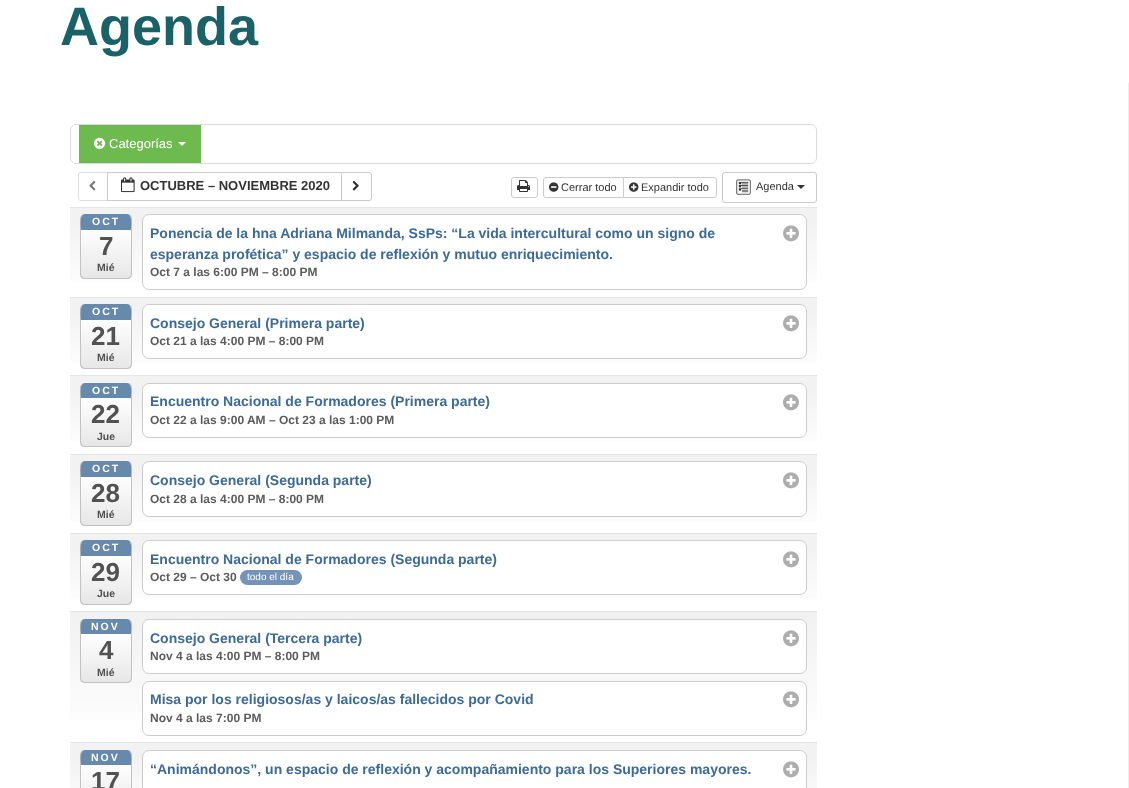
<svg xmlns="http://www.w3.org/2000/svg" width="1129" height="788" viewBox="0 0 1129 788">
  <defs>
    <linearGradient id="g1" gradientUnits="userSpaceOnUse" x1="444" y1="208" x2="444" y2="297"><stop offset="0" stop-color="rgb(242,242,242)"/><stop offset="0.15" stop-color="rgb(242,242,242)"/><stop offset="1" stop-color="rgb(255,255,255)"/></linearGradient>
    <clipPath id="clip1"><rect x="80" y="214" width="52" height="65" rx="5"/></clipPath>
    <linearGradient id="g2" gradientUnits="userSpaceOnUse" x1="106" y1="214" x2="106" y2="278"><stop offset="0" stop-color="rgb(255,255,255)"/><stop offset="0.2" stop-color="rgb(255,255,255)"/><stop offset="1" stop-color="rgb(231,231,231)"/></linearGradient>
    <linearGradient id="g3" gradientUnits="userSpaceOnUse" x1="444" y1="298" x2="444" y2="375"><stop offset="0" stop-color="rgb(242,242,242)"/><stop offset="0.17" stop-color="rgb(242,242,242)"/><stop offset="1" stop-color="rgb(255,255,255)"/></linearGradient>
    <clipPath id="clip2"><rect x="80" y="304" width="52" height="65" rx="5"/></clipPath>
    <linearGradient id="g4" gradientUnits="userSpaceOnUse" x1="106" y1="304" x2="106" y2="368"><stop offset="0" stop-color="rgb(255,255,255)"/><stop offset="0.2" stop-color="rgb(255,255,255)"/><stop offset="1" stop-color="rgb(231,231,231)"/></linearGradient>
    <linearGradient id="g5" gradientUnits="userSpaceOnUse" x1="444" y1="376" x2="444" y2="454"><stop offset="0" stop-color="rgb(242,242,242)"/><stop offset="0.17" stop-color="rgb(242,242,242)"/><stop offset="1" stop-color="rgb(255,255,255)"/></linearGradient>
    <clipPath id="clip3"><rect x="80" y="383" width="52" height="64" rx="5"/></clipPath>
    <linearGradient id="g6" gradientUnits="userSpaceOnUse" x1="106" y1="383" x2="106" y2="446"><stop offset="0" stop-color="rgb(255,255,255)"/><stop offset="0.21" stop-color="rgb(255,255,255)"/><stop offset="1" stop-color="rgb(231,231,231)"/></linearGradient>
    <linearGradient id="g7" gradientUnits="userSpaceOnUse" x1="444" y1="455" x2="444" y2="533"><stop offset="0" stop-color="rgb(242,242,242)"/><stop offset="0.17" stop-color="rgb(242,242,242)"/><stop offset="1" stop-color="rgb(255,255,255)"/></linearGradient>
    <clipPath id="clip4"><rect x="80" y="461" width="52" height="65" rx="5"/></clipPath>
    <linearGradient id="g8" gradientUnits="userSpaceOnUse" x1="106" y1="461" x2="106" y2="525"><stop offset="0" stop-color="rgb(255,255,255)"/><stop offset="0.2" stop-color="rgb(255,255,255)"/><stop offset="1" stop-color="rgb(231,231,231)"/></linearGradient>
    <linearGradient id="g9" gradientUnits="userSpaceOnUse" x1="444" y1="534" x2="444" y2="611"><stop offset="0" stop-color="rgb(242,242,242)"/><stop offset="0.17" stop-color="rgb(242,242,242)"/><stop offset="1" stop-color="rgb(255,255,255)"/></linearGradient>
    <clipPath id="clip5"><rect x="80" y="540" width="52" height="65" rx="5"/></clipPath>
    <linearGradient id="g10" gradientUnits="userSpaceOnUse" x1="106" y1="540" x2="106" y2="604"><stop offset="0" stop-color="rgb(255,255,255)"/><stop offset="0.2" stop-color="rgb(255,255,255)"/><stop offset="1" stop-color="rgb(231,231,231)"/></linearGradient>
    <linearGradient id="g11" gradientUnits="userSpaceOnUse" x1="444" y1="612" x2="444" y2="742"><stop offset="0" stop-color="rgb(242,242,242)"/><stop offset="0.1" stop-color="rgb(242,242,242)"/><stop offset="1" stop-color="rgb(255,255,255)"/></linearGradient>
    <clipPath id="clip6"><rect x="80" y="619" width="52" height="64" rx="5"/></clipPath>
    <linearGradient id="g12" gradientUnits="userSpaceOnUse" x1="106" y1="619" x2="106" y2="682"><stop offset="0" stop-color="rgb(255,255,255)"/><stop offset="0.21" stop-color="rgb(255,255,255)"/><stop offset="1" stop-color="rgb(231,231,231)"/></linearGradient>
    <linearGradient id="g13" gradientUnits="userSpaceOnUse" x1="444" y1="743" x2="444" y2="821"><stop offset="0" stop-color="rgb(242,242,242)"/><stop offset="0.17" stop-color="rgb(242,242,242)"/><stop offset="1" stop-color="rgb(255,255,255)"/></linearGradient>
    <clipPath id="clip7"><rect x="80" y="750" width="52" height="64" rx="5"/></clipPath>
    <linearGradient id="g14" gradientUnits="userSpaceOnUse" x1="106" y1="750" x2="106" y2="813"><stop offset="0" stop-color="rgb(255,255,255)"/><stop offset="0.21" stop-color="rgb(255,255,255)"/><stop offset="1" stop-color="rgb(231,231,231)"/></linearGradient>
  </defs>
  <rect width="100%" height="100%" fill="rgb(238,238,238)"/>
  <rect x="0" y="0" width="1129" height="83" fill="rgb(255,255,255)"/>
  <text x="60" y="45" font-family="Liberation Sans" font-size="54" font-weight="bold" fill="rgb(26,98,104)">Agenda</text>
  <rect x="0" y="83" width="1128" height="705" fill="rgb(255,255,255)"/>
  <rect x="70.5" y="124.5" width="746" height="39" rx="5.5" fill="none" stroke="rgb(219,219,219)"/>
  <rect x="79" y="125" width="122" height="38" fill="rgb(109,187,79)"/>
  <image x="94" y="137" width="12" height="12" href="pic1.png"/>
  <text x="109" y="148" font-family="Liberation Sans" font-size="13" fill="rgb(255,255,255)">Categorías</text>
  <path d="M178 142H186L182 146Z" fill="rgb(255,255,255)"/>
  <path d="M81 172.5H107.5V200.5H81C79.5 200.5 78.5 199.5 78.5 198V175C78.5 173.5 79.5 172.5 81 172.5Z" fill="none" stroke="rgb(222,222,222)"/>
  <image x="89" y="181" width="7" height="10" href="pic2.png"/>
  <rect x="107.5" y="172.5" width="234" height="28" fill="none" stroke="rgb(204,204,204)"/>
  <image x="121" y="177" width="14" height="16" href="pic3.png"/>
  <text x="140" y="190" font-family="Liberation Sans" font-size="13" font-weight="bold" fill="rgb(51,51,51)">OCTUBRE – NOVIEMBRE 2020</text>
  <path d="M341.5 172.5H369C370.5 172.5 371.5 173.5 371.5 175V198C371.5 199.5 370.5 200.5 369 200.5H341.5Z" fill="rgb(255,255,255)" stroke="rgb(204,204,204)"/>
  <image x="352" y="181" width="7" height="10" href="pic4.png"/>
  <rect x="511.5" y="177.5" width="26" height="20" rx="2.5" fill="none" stroke="rgb(204,204,204)"/>
  <image x="517" y="180" width="13" height="12" href="pic5.png"/>
  <path d="M546 177.5H623.5V197.5H546C544.5 197.5 543.5 196.5 543.5 195V180C543.5 178.5 544.5 177.5 546 177.5Z" fill="none" stroke="rgb(204,204,204)"/>
  <image x="549" y="182" width="10" height="10" href="pic6.png"/>
  <text x="561" y="191" font-family="Liberation Sans" font-size="11" fill="rgb(51,51,51)">Cerrar todo</text>
  <path d="M623.5 177.5H714C715.5 177.5 716.5 178.5 716.5 180V195C716.5 196.5 715.5 197.5 714 197.5H623.5Z" fill="rgb(255,255,255)" stroke="rgb(204,204,204)"/>
  <image x="629" y="182" width="10" height="10" href="pic7.png"/>
  <text x="641" y="191" font-family="Liberation Sans" font-size="11" fill="rgb(51,51,51)">Expandir todo</text>
  <rect x="722.5" y="172.5" width="94" height="30" rx="2.5" fill="none" stroke="rgb(204,204,204)"/>
  <image x="736" y="179" width="15" height="16" href="pic8.png"/>
  <text x="756" y="190" font-family="Liberation Sans" font-size="11" fill="rgb(51,51,51)">Agenda</text>
  <path d="M797 185H805L801 189Z" fill="rgb(51,51,51)"/>
  <rect x="70" y="208" width="747" height="74" fill="url(#g1)"/>
  <rect x="70" y="207" width="747" height="1" fill="rgb(229,229,229)"/>
  <g clip-path="url(#clip1)">
    <rect x="81" y="214" width="50" height="64" fill="url(#g2)"/>
  </g>
  <path d="M85 214H127C130 214 132 216 132 219V274C132 277 130 279 127 279H85C82 279 80 277 80 274V219C80 216 82 214 85 214ZM85 214H127C129 214 131 216 131 219V274C131 276 129 278 127 278H85C83 278 81 276 81 274V219C81 216 83 214 85 214Z" fill="rgb(194,194,194)" fill-rule="evenodd"/>
  <path d="M85 214C79 214 81 227 81 230H131C131 227 133 214 127 214Z" fill="rgb(102,137,172)"/>
  <text x="92" y="225" font-family="Liberation Sans" font-size="10.5" font-weight="bold" letter-spacing="2" fill="rgb(255,255,255)">OCT</text>
  <text x="99" y="255" font-family="Liberation Sans" font-size="26" font-weight="bold" fill="rgb(82,82,82)">7</text>
  <text x="97" y="271" font-family="Liberation Sans" font-size="10.5" font-weight="bold" fill="rgb(82,82,82)">Mié</text>
  <rect x="142.5" y="214.5" width="664" height="75" rx="6.5" fill="rgb(255,255,255)" stroke="rgb(204,204,204)"/>
  <text x="150" y="238" font-family="Liberation Sans" font-size="14" font-weight="bold" fill="rgb(61,107,153)">Ponencia de la hna Adriana Milmanda, SsPs: “La vida intercultural como un signo de</text>
  <image x="783" y="225" width="16" height="17" href="pic9.png"/>
  <text x="150" y="259" font-family="Liberation Sans" font-size="14" font-weight="bold" fill="rgb(61,107,153)">esperanza profética” y espacio de reflexión y mutuo enriquecimiento.</text>
  <text x="150" y="276" font-family="Liberation Sans" font-size="12" font-weight="bold" fill="rgb(92,92,92)">Oct 7 a las 6:00 PM – 8:00 PM</text>
  <rect x="70" y="298" width="747" height="65" fill="url(#g3)"/>
  <rect x="70" y="297" width="747" height="1" fill="rgb(229,229,229)"/>
  <g clip-path="url(#clip2)">
    <rect x="81" y="304" width="50" height="64" fill="url(#g4)"/>
  </g>
  <path d="M85 304H127C130 304 132 306 132 309V364C132 367 130 369 127 369H85C82 369 80 367 80 364V309C80 306 82 304 85 304ZM85 304H127C129 304 131 306 131 309V364C131 366 129 368 127 368H85C83 368 81 366 81 364V309C81 306 83 304 85 304Z" fill="rgb(194,194,194)" fill-rule="evenodd"/>
  <path d="M85 304C79 304 81 317 81 320H131C131 317 133 304 127 304Z" fill="rgb(102,137,172)"/>
  <text x="92" y="315" font-family="Liberation Sans" font-size="10.5" font-weight="bold" letter-spacing="2" fill="rgb(255,255,255)">OCT</text>
  <text x="91" y="345" font-family="Liberation Sans" font-size="26" font-weight="bold" fill="rgb(82,82,82)">21</text>
  <text x="97" y="361" font-family="Liberation Sans" font-size="10.5" font-weight="bold" fill="rgb(82,82,82)">Mié</text>
  <rect x="142.5" y="304.5" width="664" height="54" rx="6.5" fill="rgb(255,255,255)" stroke="rgb(204,204,204)"/>
  <text x="150" y="328" font-family="Liberation Sans" font-size="14" font-weight="bold" fill="rgb(61,107,153)">Consejo General (Primera parte)</text>
  <image x="783" y="315" width="16" height="17" href="pic9.png"/>
  <text x="150" y="345" font-family="Liberation Sans" font-size="12" font-weight="bold" fill="rgb(92,92,92)">Oct 21 a las 4:00 PM – 8:00 PM</text>
  <rect x="70" y="376" width="747" height="66" fill="url(#g5)"/>
  <rect x="70" y="375" width="747" height="1" fill="rgb(229,229,229)"/>
  <g clip-path="url(#clip3)">
    <rect x="81" y="383" width="50" height="63" fill="url(#g6)"/>
  </g>
  <path d="M85 383H127C130 383 132 385 132 388V442C132 445 130 447 127 447H85C82 447 80 445 80 442V388C80 385 82 383 85 383ZM85 383H127C129 383 131 385 131 388V442C131 444 129 446 127 446H85C83 446 81 444 81 442V388C81 385 83 383 85 383Z" fill="rgb(194,194,194)" fill-rule="evenodd"/>
  <path d="M85 383C79 383 81 395 81 398H131C131 395 133 383 127 383Z" fill="rgb(102,137,172)"/>
  <text x="92" y="394" font-family="Liberation Sans" font-size="10.5" font-weight="bold" letter-spacing="2" fill="rgb(255,255,255)">OCT</text>
  <text x="91" y="423" font-family="Liberation Sans" font-size="26" font-weight="bold" fill="rgb(82,82,82)">22</text>
  <text x="97" y="440" font-family="Liberation Sans" font-size="10.5" font-weight="bold" fill="rgb(82,82,82)">Jue</text>
  <rect x="142.5" y="383.5" width="664" height="54" rx="6.5" fill="rgb(255,255,255)" stroke="rgb(204,204,204)"/>
  <text x="150" y="406" font-family="Liberation Sans" font-size="14" font-weight="bold" fill="rgb(61,107,153)">Encuentro Nacional de Formadores (Primera parte)</text>
  <image x="783" y="394" width="16" height="17" href="pic9.png"/>
  <text x="150" y="424" font-family="Liberation Sans" font-size="12" font-weight="bold" fill="rgb(92,92,92)">Oct 22 a las 9:00 AM – Oct 23 a las 1:00 PM</text>
  <rect x="70" y="455" width="747" height="66" fill="url(#g7)"/>
  <rect x="70" y="454" width="747" height="1" fill="rgb(229,229,229)"/>
  <g clip-path="url(#clip4)">
    <rect x="81" y="461" width="50" height="64" fill="url(#g8)"/>
  </g>
  <path d="M85 461H127C130 461 132 463 132 466V521C132 524 130 526 127 526H85C82 526 80 524 80 521V466C80 463 82 461 85 461ZM85 461H127C129 461 131 463 131 466V521C131 523 129 525 127 525H85C83 525 81 523 81 521V466C81 463 83 461 85 461Z" fill="rgb(194,194,194)" fill-rule="evenodd"/>
  <path d="M85 461C79 461 81 474 81 477H131C131 474 133 461 127 461Z" fill="rgb(102,137,172)"/>
  <text x="92" y="472" font-family="Liberation Sans" font-size="10.5" font-weight="bold" letter-spacing="2" fill="rgb(255,255,255)">OCT</text>
  <text x="91" y="502" font-family="Liberation Sans" font-size="26" font-weight="bold" fill="rgb(82,82,82)">28</text>
  <text x="97" y="518" font-family="Liberation Sans" font-size="10.5" font-weight="bold" fill="rgb(82,82,82)">Mié</text>
  <rect x="142.5" y="461.5" width="664" height="55" rx="6.5" fill="rgb(255,255,255)" stroke="rgb(204,204,204)"/>
  <text x="150" y="485" font-family="Liberation Sans" font-size="14" font-weight="bold" fill="rgb(61,107,153)">Consejo General (Segunda parte)</text>
  <image x="783" y="472" width="16" height="17" href="pic9.png"/>
  <text x="150" y="503" font-family="Liberation Sans" font-size="12" font-weight="bold" fill="rgb(92,92,92)">Oct 28 a las 4:00 PM – 8:00 PM</text>
  <rect x="70" y="534" width="747" height="65" fill="url(#g9)"/>
  <rect x="70" y="533" width="747" height="1" fill="rgb(229,229,229)"/>
  <g clip-path="url(#clip5)">
    <rect x="81" y="540" width="50" height="64" fill="url(#g10)"/>
  </g>
  <path d="M85 540H127C130 540 132 542 132 545V600C132 603 130 605 127 605H85C82 605 80 603 80 600V545C80 542 82 540 85 540ZM85 540H127C129 540 131 542 131 545V600C131 602 129 604 127 604H85C83 604 81 602 81 600V545C81 542 83 540 85 540Z" fill="rgb(194,194,194)" fill-rule="evenodd"/>
  <path d="M85 540C79 540 81 553 81 556H131C131 553 133 540 127 540Z" fill="rgb(102,137,172)"/>
  <text x="92" y="551" font-family="Liberation Sans" font-size="10.5" font-weight="bold" letter-spacing="2" fill="rgb(255,255,255)">OCT</text>
  <text x="91" y="581" font-family="Liberation Sans" font-size="26" font-weight="bold" fill="rgb(82,82,82)">29</text>
  <text x="97" y="597" font-family="Liberation Sans" font-size="10.5" font-weight="bold" fill="rgb(82,82,82)">Jue</text>
  <rect x="142.5" y="540.5" width="664" height="54" rx="6.5" fill="rgb(255,255,255)" stroke="rgb(204,204,204)"/>
  <text x="150" y="564" font-family="Liberation Sans" font-size="14" font-weight="bold" fill="rgb(61,107,153)">Encuentro Nacional de Formadores (Segunda parte)</text>
  <image x="783" y="551" width="16" height="17" href="pic9.png"/>
  <text x="150" y="581" font-family="Liberation Sans" font-size="12" font-weight="bold" fill="rgb(92,92,92)">Oct 29 – Oct 30</text>
  <rect x="240" y="570" width="62" height="15" rx="7.5" fill="rgb(115,148,182)"/>
  <text x="247" y="580" font-family="Liberation Sans" font-size="10" fill="rgb(255,255,255)">todo el día</text>
  <rect x="70" y="612" width="747" height="108" fill="url(#g11)"/>
  <rect x="70" y="611" width="747" height="1" fill="rgb(229,229,229)"/>
  <g clip-path="url(#clip6)">
    <rect x="81" y="619" width="50" height="63" fill="url(#g12)"/>
  </g>
  <path d="M85 619H127C130 619 132 621 132 624V678C132 681 130 683 127 683H85C82 683 80 681 80 678V624C80 621 82 619 85 619ZM85 619H127C129 619 131 621 131 624V678C131 680 129 682 127 682H85C83 682 81 680 81 678V624C81 621 83 619 85 619Z" fill="rgb(194,194,194)" fill-rule="evenodd"/>
  <path d="M85 619C79 619 81 631 81 634H131C131 631 133 619 127 619Z" fill="rgb(102,137,172)"/>
  <text x="91" y="630" font-family="Liberation Sans" font-size="10.5" font-weight="bold" letter-spacing="2" fill="rgb(255,255,255)">NOV</text>
  <text x="99" y="659" font-family="Liberation Sans" font-size="26" font-weight="bold" fill="rgb(82,82,82)">4</text>
  <text x="97" y="676" font-family="Liberation Sans" font-size="10.5" font-weight="bold" fill="rgb(82,82,82)">Mié</text>
  <rect x="142.5" y="619.5" width="664" height="54" rx="6.5" fill="rgb(255,255,255)" stroke="rgb(204,204,204)"/>
  <text x="150" y="643" font-family="Liberation Sans" font-size="14" font-weight="bold" fill="rgb(61,107,153)">Consejo General (Tercera parte)</text>
  <image x="783" y="630" width="16" height="17" href="pic9.png"/>
  <text x="150" y="660" font-family="Liberation Sans" font-size="12" font-weight="bold" fill="rgb(92,92,92)">Nov 4 a las 4:00 PM – 8:00 PM</text>
  <rect x="142.5" y="681.5" width="664" height="54" rx="6.5" fill="rgb(255,255,255)" stroke="rgb(204,204,204)"/>
  <text x="150" y="704" font-family="Liberation Sans" font-size="14" font-weight="bold" fill="rgb(61,107,153)">Misa por los religiosos/as y laicos/as fallecidos por Covid</text>
  <image x="783" y="691" width="16" height="17" href="pic9.png"/>
  <text x="150" y="722" font-family="Liberation Sans" font-size="12" font-weight="bold" fill="rgb(92,92,92)">Nov 4 a las 7:00 PM</text>
  <rect x="70" y="743" width="747" height="45" fill="url(#g13)"/>
  <rect x="70" y="742" width="747" height="1" fill="rgb(229,229,229)"/>
  <g clip-path="url(#clip7)">
    <rect x="81" y="750" width="50" height="38" fill="url(#g14)"/>
  </g>
  <path d="M85 750H127C130 750 132 752 132 755V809C132 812 130 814 127 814H85C82 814 80 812 80 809V755C80 752 82 750 85 750ZM85 750H127C129 750 131 752 131 755V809C131 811 129 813 127 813H85C83 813 81 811 81 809V755C81 752 83 750 85 750Z" fill="rgb(194,194,194)" fill-rule="evenodd"/>
  <path d="M85 750C79 750 81 762 81 765H131C131 762 133 750 127 750Z" fill="rgb(102,137,172)"/>
  <text x="91" y="761" font-family="Liberation Sans" font-size="10.5" font-weight="bold" letter-spacing="2" fill="rgb(255,255,255)">NOV</text>
  <text x="91" y="790" font-family="Liberation Sans" font-size="26" font-weight="bold" fill="rgb(82,82,82)">17</text>
  <rect x="142.5" y="750.5" width="664" height="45" rx="6.5" fill="rgb(255,255,255)" stroke="rgb(204,204,204)"/>
  <text x="150" y="774" font-family="Liberation Sans" font-size="14" font-weight="bold" fill="rgb(61,107,153)">“Animándonos”, un espacio de reflexión y acompañamiento para los Superiores mayores.</text>
  <image x="783" y="761" width="16" height="17" href="pic9.png"/>
</svg>
